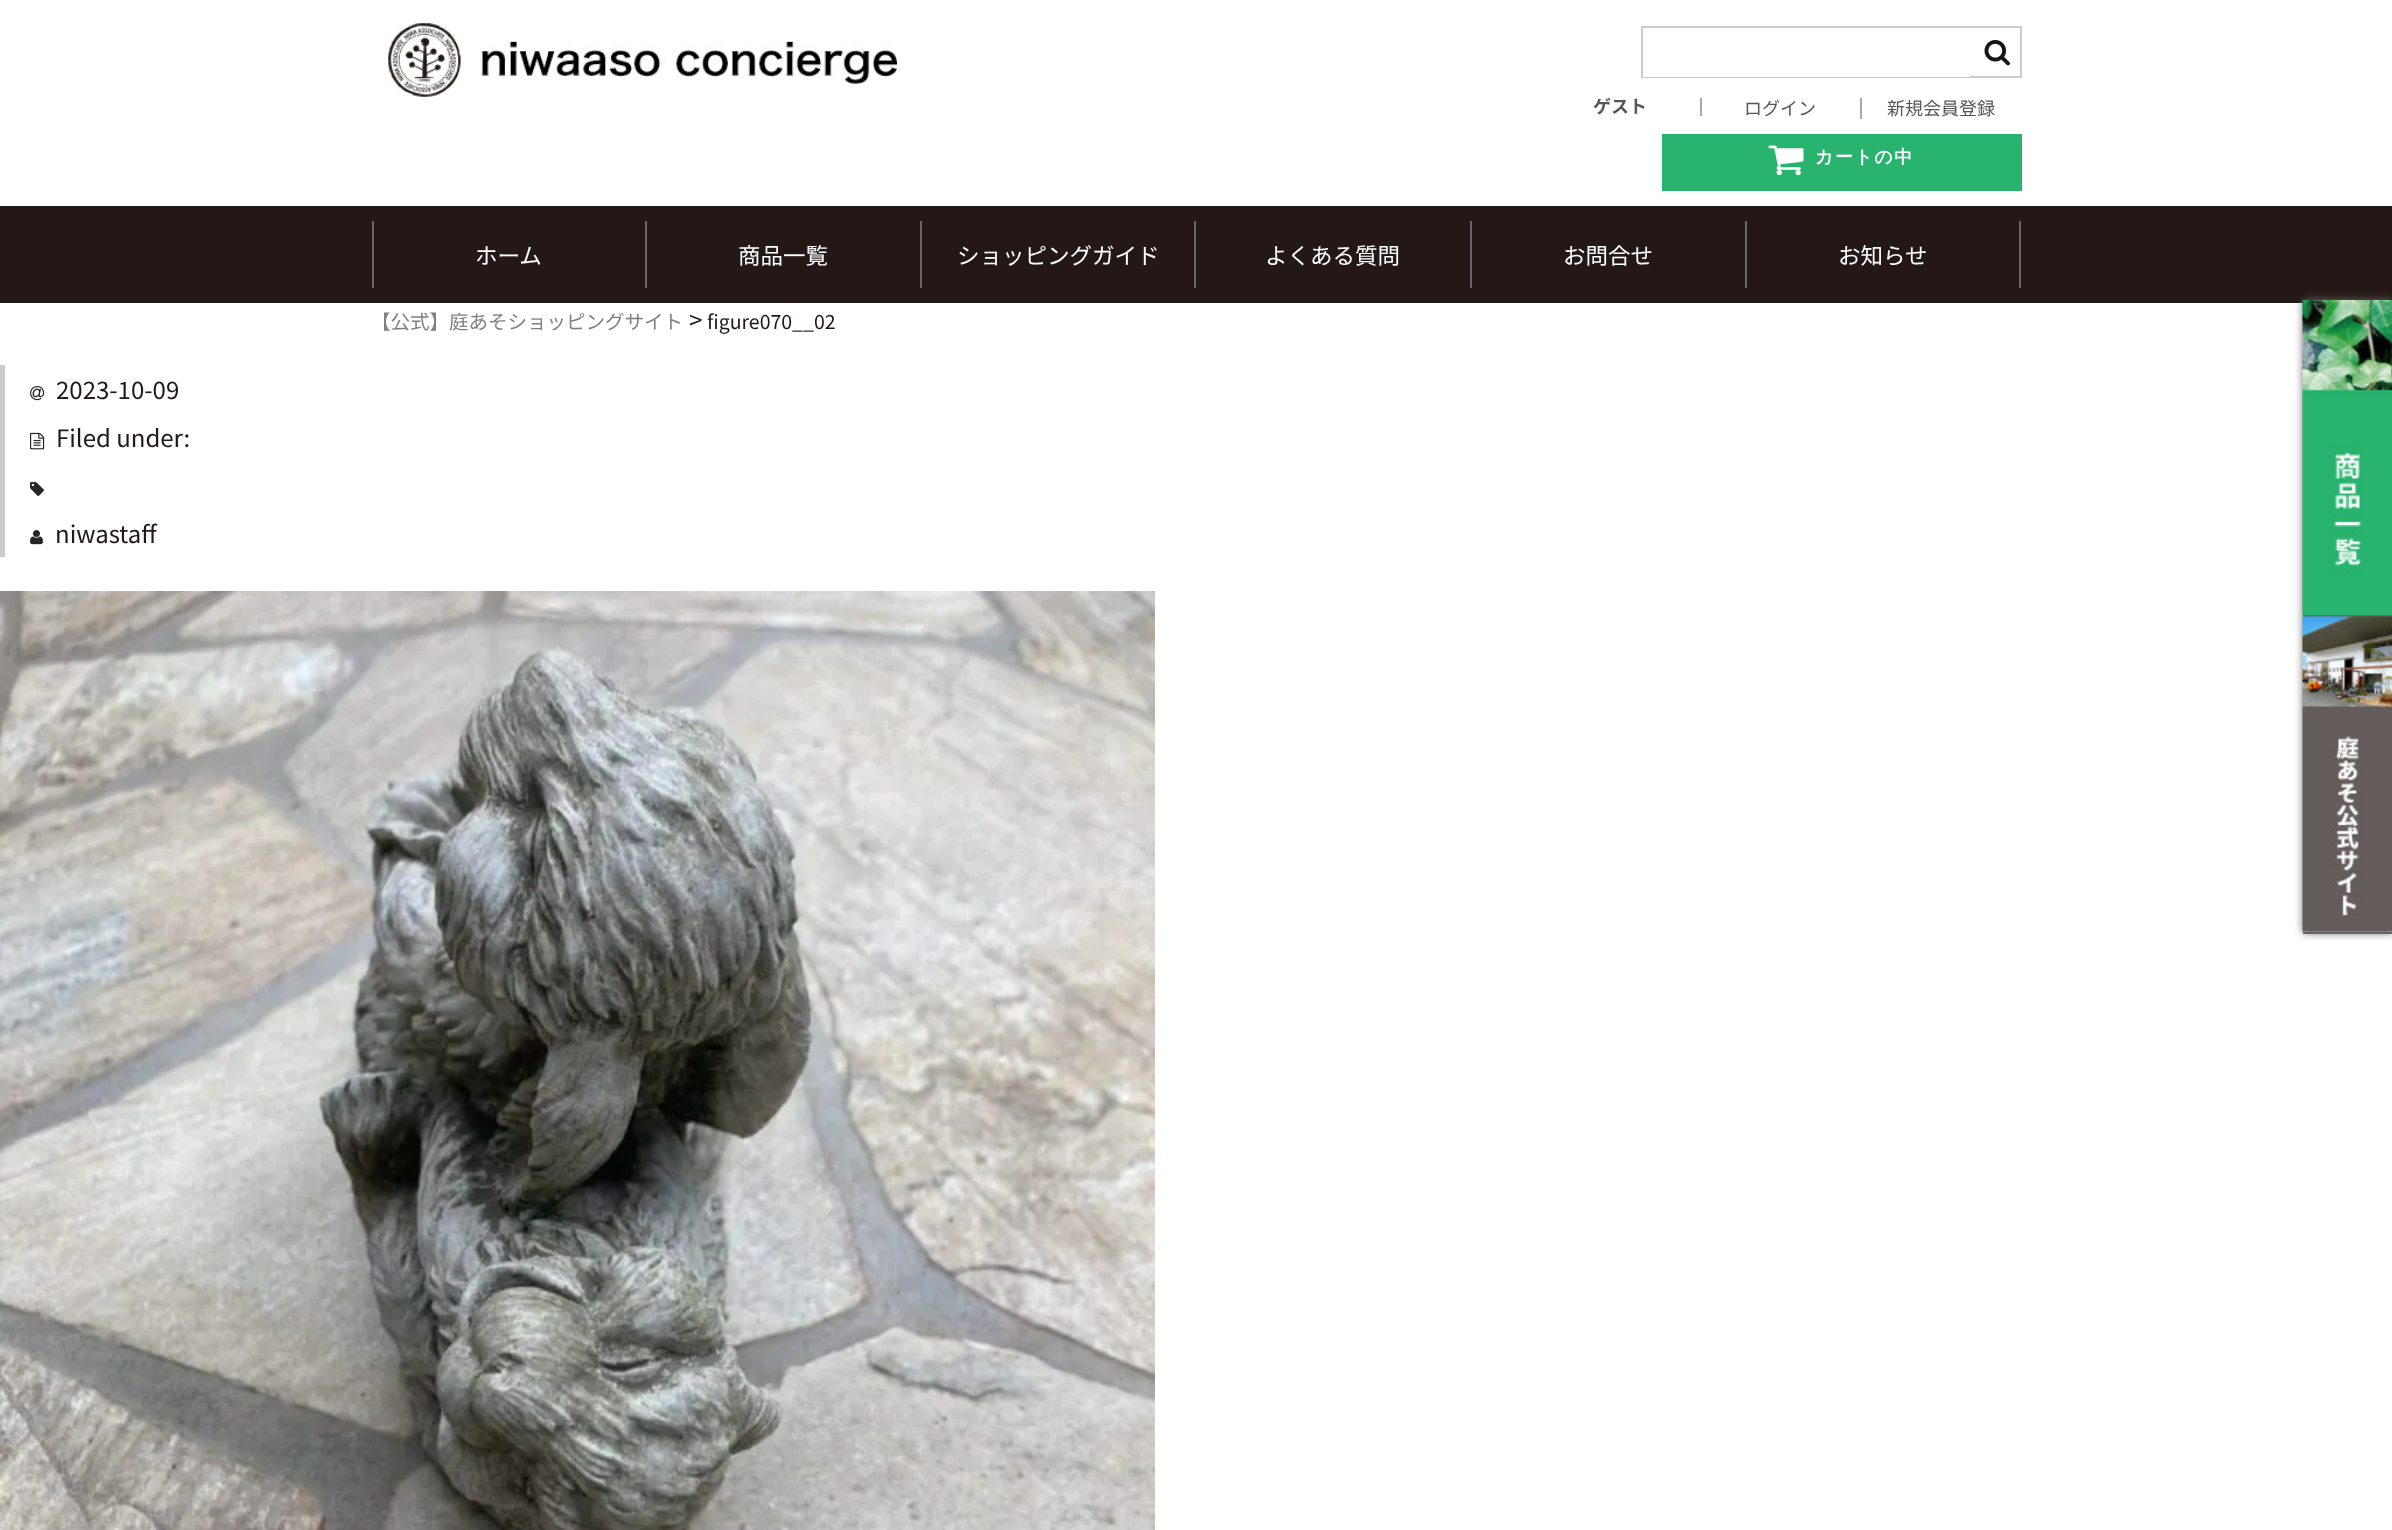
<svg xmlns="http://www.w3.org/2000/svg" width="2392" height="1530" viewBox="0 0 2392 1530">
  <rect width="100%" height="100%" fill="rgb(255,255,255)"/>
  <image x="387" y="23" width="510" height="74" href="pic1.png"/>
  <rect x="1642" y="27" width="379" height="50" fill="none" stroke="rgb(204,204,204)" stroke-width="2"/>
  <image x="1984" y="39" width="26" height="27" href="pic2.png"/>
  <rect x="1643" y="76" width="327" height="1" fill="rgb(255,255,255)"/>
  <rect x="1700" y="98" width="2" height="18" fill="rgb(170,170,170)"/>
  <text x="1593" y="113" font-family="Noto Sans JP" font-size="18" font-weight="bold" fill="rgb(86,86,86)">ゲスト</text>
  <rect x="1860" y="98" width="2" height="21" fill="rgb(170,170,170)"/>
  <g font-family="Noto Sans JP" font-size="18" fill="rgb(86,86,86)">
    <text x="1744" y="115">ログイン</text>
    <text x="1887" y="115">新規会員登録</text>
  </g>
  <rect x="1662" y="134" width="360" height="57" fill="rgb(40,179,110)"/>
  <image x="1768" y="145" width="36" height="31" href="pic3.png"/>
  <text x="1815" y="163" font-family="WenQuanYi Zen Hei" font-size="18" font-weight="bold" letter-spacing="1.5" fill="rgb(255,255,255)">カートの中</text>
  <rect x="0" y="206" width="2392" height="97" fill="rgb(35,24,21)"/>
  <rect x="645" y="221" width="2" height="67" fill="rgb(102,102,102)"/>
  <rect x="372" y="221" width="2" height="67" fill="rgb(102,102,102)"/>
  <text x="475" y="264" font-family="Noto Sans JP" font-size="22.5" fill="rgb(255,255,255)">ホーム</text>
  <rect x="920" y="221" width="2" height="67" fill="rgb(102,102,102)"/>
  <text x="738" y="264" font-family="Noto Sans JP" font-size="22.5" fill="rgb(255,255,255)">商品一覧</text>
  <rect x="1194" y="221" width="2" height="67" fill="rgb(102,102,102)"/>
  <text x="957" y="264" font-family="Noto Sans JP" font-size="22.5" fill="rgb(255,255,255)">ショッピングガイド</text>
  <rect x="1470" y="221" width="2" height="67" fill="rgb(102,102,102)"/>
  <text x="1265" y="264" font-family="Noto Sans JP" font-size="22.5" fill="rgb(255,255,255)">よくある質問</text>
  <rect x="1745" y="221" width="2" height="67" fill="rgb(102,102,102)"/>
  <text x="1563" y="264" font-family="Noto Sans JP" font-size="22.5" fill="rgb(255,255,255)">お問合せ</text>
  <rect x="2019" y="221" width="2" height="67" fill="rgb(102,102,102)"/>
  <text x="1838" y="264" font-family="Noto Sans JP" font-size="22.5" fill="rgb(255,255,255)">お知らせ</text>
  <text x="371" y="329" font-family="Noto Sans JP" font-size="19.5" fill="rgb(128,128,128)">【公式】庭あそショッピングサイト</text>
  <text x="689" y="329" font-family="Noto Sans JP" font-size="24" fill="rgb(35,24,21)">&gt;</text>
  <text x="707" y="329" font-family="Noto Sans JP" font-size="19.5" fill="rgb(35,24,21)">figure070__02</text>
  <rect x="0" y="365" width="5" height="192" fill="rgb(204,202,202)"/>
  <image x="30" y="386" width="15" height="15" href="pic4.png"/>
  <text x="56" y="399" font-family="Noto Sans JP" font-size="24" fill="rgb(35,24,21)">2023-10-09</text>
  <image x="30" y="432" width="15" height="18" href="pic5.png"/>
  <text x="56" y="447" font-family="Noto Sans JP" font-size="24" fill="rgb(35,24,21)">Filed under:</text>
  <image x="30" y="482" width="14" height="14" href="pic6.png"/>
  <image x="30" y="530" width="13" height="15" href="pic7.png"/>
  <text x="55" y="543" font-family="Noto Sans JP" font-size="24" fill="rgb(35,24,21)">niwastaff</text>
  <image x="0" y="591" width="1155" height="939" href="pic8.png"/>
  <rect x="2303" y="300" width="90" height="633" fill="rgb(102,102,102)" filter="blur(4px)"/>
  <rect x="2303" y="615" width="89" height="2" fill="rgb(102,102,102)"/>
  <image x="2302" y="300" width="90" height="315" href="pic9.png"/>
  <rect x="2303" y="932" width="89" height="2" fill="rgb(102,102,102)"/>
  <image x="2302" y="616" width="90" height="316" href="pic10.png"/>
</svg>
